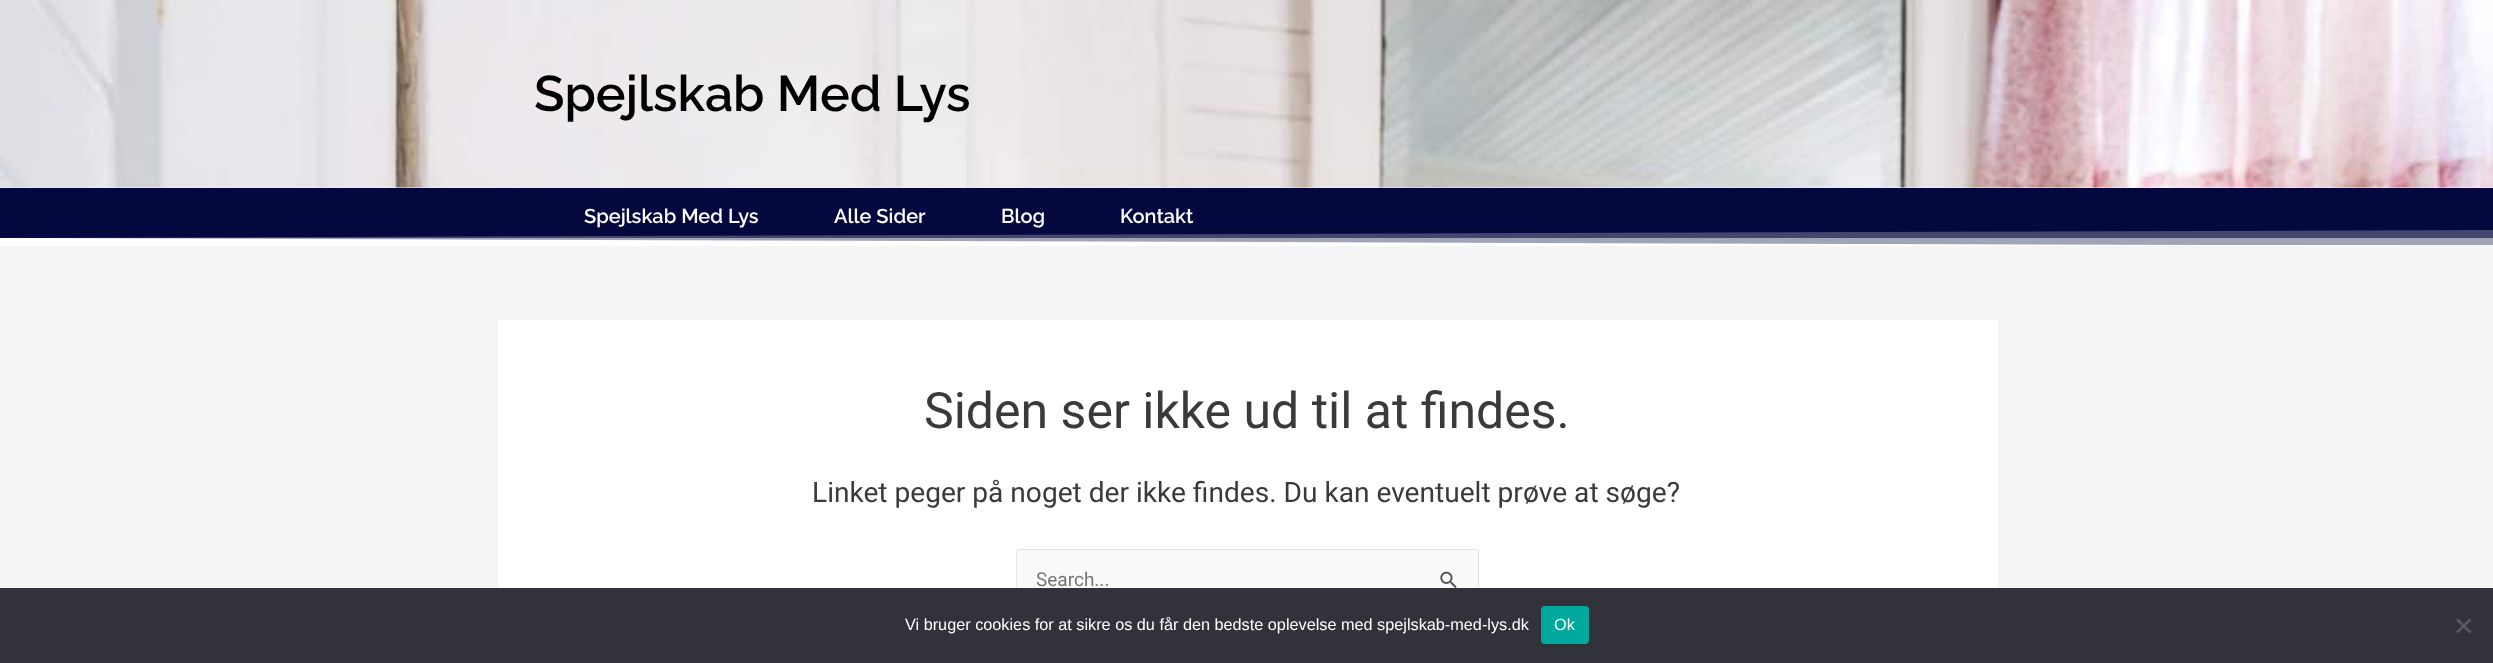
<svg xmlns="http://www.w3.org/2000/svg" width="2493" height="663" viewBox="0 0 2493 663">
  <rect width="100%" height="100%" fill="rgb(245,245,245)"/>
  <rect x="2202" y="245" width="291" height="1" fill="rgb(250,250,250)"/>
  <image x="0" y="0" width="2493" height="188" href="pic1.png"/>
  <text x="534" y="111" font-family="Raleway" font-size="50" font-weight="600" fill="rgb(0,0,0)">Spejlskab Med Lys</text>
  <rect x="0" y="188" width="2493" height="50" fill="rgb(5,8,62)"/>
  <rect x="19" y="238" width="2474" height="7" fill="rgb(130,132,159)"/>
  <g font-family="Raleway" font-size="20" font-weight="600" fill="rgb(255,255,255)">
    <text x="584" y="223">Spejlskab Med Lys</text>
    <text x="834" y="223">Alle Sider</text>
    <text x="1001" y="223">Blog</text>
    <text x="1120" y="223">Kontakt</text>
  </g>
  <path d="M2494 246H-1V238Z" fill="rgb(255,255,255)"/>
  <path d="M-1 246H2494V230L-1 238Z" fill="rgba(255,255,255,0.25)"/>
  <rect x="498" y="320" width="1500" height="268" fill="rgb(255,255,255)"/>
  <text x="924" y="428" font-family="Roboto" font-size="50" fill="rgb(58,58,58)">Siden ser ikke ud til at findes.</text>
  <text x="812" y="502" font-family="Roboto" font-size="28.1" fill="rgb(58,58,58)">Linket peger på noget der ikke findes. Du kan eventuelt prøve at søge?</text>
  <rect x="1016.5" y="549.5" width="462" height="63" rx="2" fill="rgb(250,250,250)" stroke="rgb(229,229,229)"/>
  <text x="1036" y="586" font-family="Roboto" font-size="19" fill="rgb(117,117,117)">Search...</text>
  <image x="1440" y="571" width="17" height="17" href="pic2.png"/>
  <rect x="0" y="588" width="2493" height="75" fill="rgb(50,50,58)"/>
  <text x="905" y="630" font-family="Liberation Sans" font-size="16.25" fill="rgb(255,255,255)">Vi bruger cookies for at sikre os du får den bedste oplevelse med spejlskab-med-lys.dk</text>
  <rect x="1541" y="606" width="48" height="38" rx="4" fill="rgb(0,169,157)"/>
  <text x="1554" y="630" font-family="Liberation Sans" font-size="16.25" fill="rgb(255,255,255)">Ok</text>
  <path d="M2469.5 618.5L2471.5 620L2458 633.5L2456 631.5Z" fill="rgb(89,89,93)"/>
  <path d="M2456 620L2458 618.5L2471.5 631.5L2469.5 633.5Z" fill="rgb(89,89,93)"/>
</svg>
